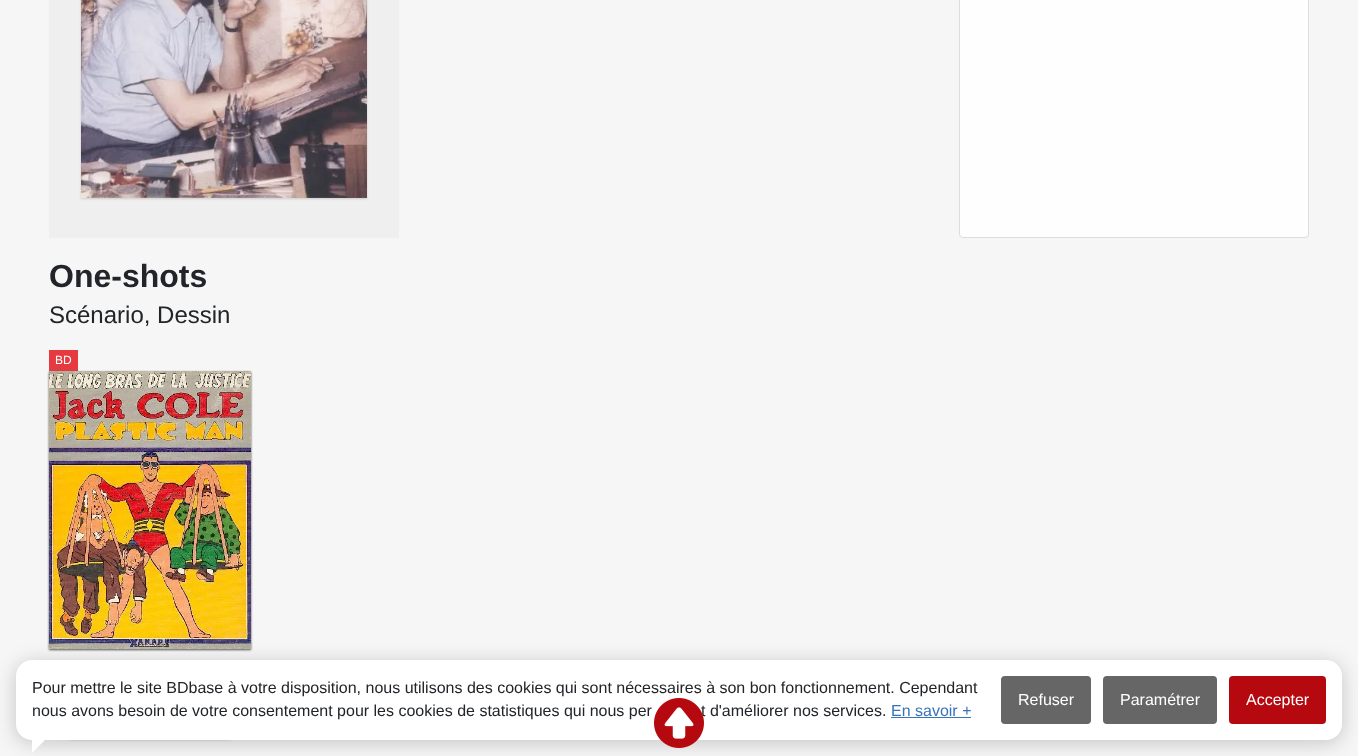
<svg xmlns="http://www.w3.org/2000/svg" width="1358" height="756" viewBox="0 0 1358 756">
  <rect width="100%" height="100%" fill="rgb(246,246,246)"/>
  <rect x="49" y="0" width="350" height="238" fill="rgb(239,239,239)"/>
  <rect x="81" y="-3" width="286" height="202" fill="rgb(204,204,204)" filter="blur(1px)"/>
  <image x="81" y="0" width="286" height="198" href="pic1.png"/>
  <rect x="959.5" y="-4.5" width="349" height="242" rx="3.5" fill="rgb(254,254,254)" stroke="rgb(221,221,221)"/>
  <text x="49" y="287" font-family="Liberation Sans" font-size="32" font-weight="bold" fill="rgb(33,37,41)">One-shots</text>
  <text x="49" y="323" font-family="Liberation Sans" font-size="24" fill="rgb(33,37,41)">Scénario, Dessin</text>
  <rect x="49" y="350" width="29" height="21" fill="rgb(229,58,64)"/>
  <text x="55" y="364" font-family="Liberation Sans" font-size="12" fill="rgb(255,255,255)">BD</text>
  <rect x="49" y="372" width="202" height="278" fill="rgb(85,85,85)" filter="blur(1px)"/>
  <image x="49" y="371" width="202" height="278" href="pic2.png"/>
  <rect x="54" y="684" width="192" height="56" rx="20" fill="rgb(204,204,204)" filter="blur(1px)"/>
  <rect x="16" y="663" width="1326" height="80" rx="16" fill="rgba(0,0,0,0.2)" filter="blur(10px)"/>
  <rect x="16" y="660" width="1326" height="80" rx="16" fill="rgb(255,255,255)"/>
  <g font-family="Liberation Sans" font-size="16" fill="rgb(33,37,41)">
    <text>
      <tspan x="32" y="693">Pour mettre le site BDbase à votre disposition, nous utilisons des cookies qui sont nécessaires à son bon fonctionnement. Cependant</tspan>
      <tspan x="32" y="716">nous avons besoin de votre consentement pour les cookies de statistiques qui nous per</tspan>
    </text>
    <text x="701" y="716">t d'améliorer nos services.</text>
  </g>
  <text x="891" y="716" font-family="Liberation Sans" font-size="16" fill="rgb(56,115,184)">En savoir +</text>
  <rect x="891" y="717" width="80" height="1" fill="rgb(56,115,184)"/>
  <rect x="1001" y="676" width="90" height="48" rx="4" fill="rgb(102,102,102)"/>
  <text x="1018" y="705" font-family="Liberation Sans" font-size="16" fill="rgb(255,255,255)">Refuser</text>
  <rect x="1103" y="676" width="114" height="48" rx="4" fill="rgb(102,102,102)"/>
  <text x="1120" y="705" font-family="Liberation Sans" font-size="16" fill="rgb(255,255,255)">Paramétrer</text>
  <rect x="1229" y="676" width="97" height="48" rx="4" fill="rgb(181,9,15)"/>
  <text x="1246" y="705" font-family="Liberation Sans" font-size="16" fill="rgb(255,255,255)">Accepter</text>
  <path d="M32 733H52L32 753Z" fill="rgb(255,255,255)"/>
  <image x="654" y="698" width="50" height="50" href="pic3.png"/>
</svg>
